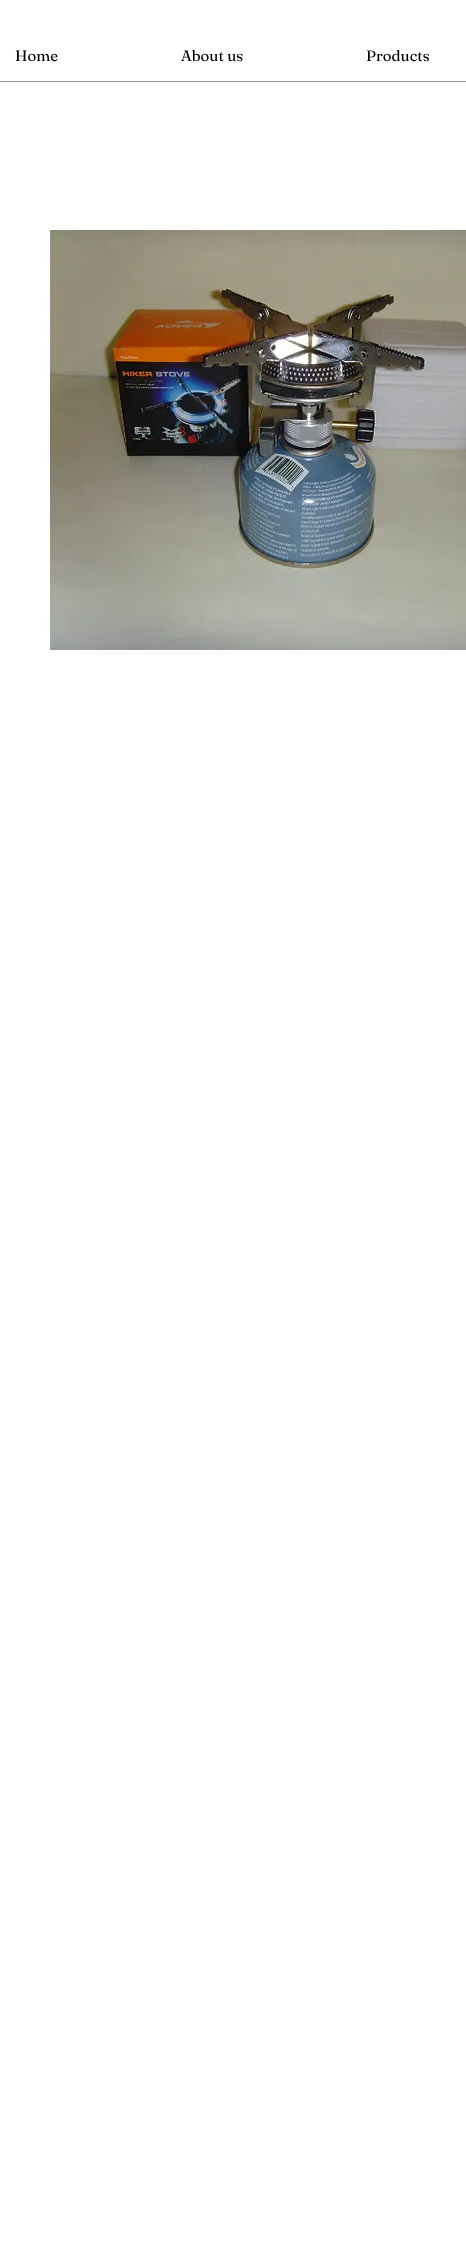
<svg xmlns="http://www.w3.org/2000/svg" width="466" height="2241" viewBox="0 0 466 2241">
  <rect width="100%" height="100%" fill="rgb(255,255,255)"/>
  <g font-family="Fraunces" font-size="15" fill="rgb(0,0,0)">
    <text x="15" y="61">Home</text>
    <text x="181" y="61">About us</text>
    <text x="366" y="61">Products</text>
  </g>
  <rect x="0" y="81" width="466" height="1" fill="rgb(146,146,146)"/>
  <image x="50" y="230" width="416" height="420" href="pic1.png"/>
</svg>
